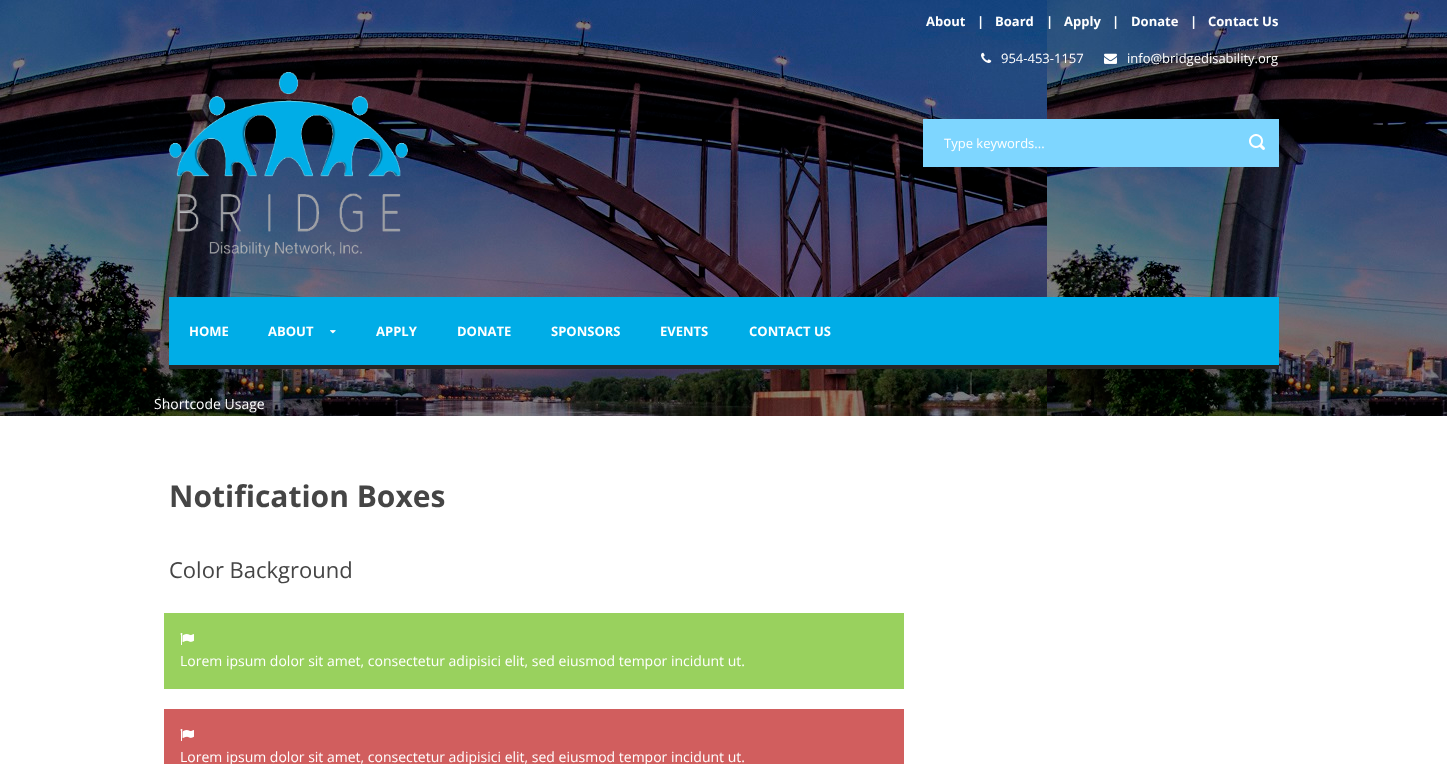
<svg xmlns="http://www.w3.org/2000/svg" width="1447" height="764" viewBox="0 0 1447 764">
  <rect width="100%" height="100%" fill="rgb(255,255,255)"/>
  <image x="0" y="0" width="1447" height="416" href="pic1.png"/>
  <g font-family="Open Sans" font-size="13" font-weight="bold" fill="rgb(255,255,255)">
    <text x="926" y="26">About</text>
    <text x="977" y="26">|</text>
    <text x="995" y="26">Board</text>
    <text x="1046" y="26">|</text>
    <text x="1064" y="26">Apply</text>
    <text x="1112" y="26">|</text>
    <text x="1131" y="26">Donate</text>
    <text x="1190" y="26">|</text>
    <text x="1208" y="26">Contact Us</text>
  </g>
  <image x="981" y="52" width="11" height="11" href="pic2.png"/>
  <text x="1001" y="63" font-family="Open Sans" font-size="13" fill="rgb(255,255,255)">954-453-1157</text>
  <image x="1104" y="53" width="13" height="11" href="pic3.png"/>
  <text x="1127" y="63" font-family="Open Sans" font-size="13" fill="rgb(255,255,255)">info@bridgedisability.org</text>
  <image x="169" y="72" width="239" height="185" href="pic4.png"/>
  <rect x="923" y="119" width="356" height="48" fill="rgb(126,214,255)"/>
  <text x="944" y="148" font-family="Open Sans" font-size="13" fill="rgb(255,255,255)">Type keywords...</text>
  <image x="1249" y="134" width="16" height="16" href="pic5.png"/>
  <rect x="169" y="297" width="1110" height="68" fill="rgb(0,173,231)"/>
  <rect x="169" y="365" width="1110" height="4" fill="rgb(38,38,38)"/>
  <g font-family="Open Sans" font-size="13" font-weight="bold" fill="rgb(255,255,255)">
    <text x="189" y="336">HOME</text>
    <text x="268" y="336">ABOUT</text>
  </g>
  <image x="330" y="330" width="6" height="4" href="pic6.png"/>
  <g font-family="Open Sans" font-size="13" font-weight="bold" fill="rgb(255,255,255)">
    <text x="376" y="336">APPLY</text>
    <text x="457" y="336">DONATE</text>
    <text x="551" y="336">SPONSORS</text>
    <text x="660" y="336">EVENTS</text>
    <text x="749" y="336">CONTACT US</text>
  </g>
  <text x="154" y="409" font-family="Open Sans" font-size="14" fill="rgb(255,255,255)">Shortcode Usage</text>
  <text x="169" y="507" font-family="Open Sans" font-size="30" font-weight="bold" fill="rgb(69,69,69)">Notification Boxes</text>
  <text x="169" y="578" font-family="Open Sans" font-size="22" fill="rgb(69,69,69)">Color Background</text>
  <rect x="164" y="613" width="740" height="76" fill="rgb(153,209,94)"/>
  <image x="180" y="633" width="14" height="12" href="pic7.png"/>
  <text x="180" y="666" font-family="Open Sans" font-size="14" fill="rgb(255,255,255)">Lorem ipsum dolor sit amet, consectetur adipisici elit, sed eiusmod tempor incidunt ut.</text>
  <rect x="164" y="709" width="740" height="55" fill="rgb(209,94,94)"/>
  <image x="180" y="729" width="14" height="12" href="pic8.png"/>
  <text x="180" y="762" font-family="Open Sans" font-size="14" fill="rgb(255,255,255)">Lorem ipsum dolor sit amet, consectetur adipisici elit, sed eiusmod tempor incidunt ut.</text>
</svg>
